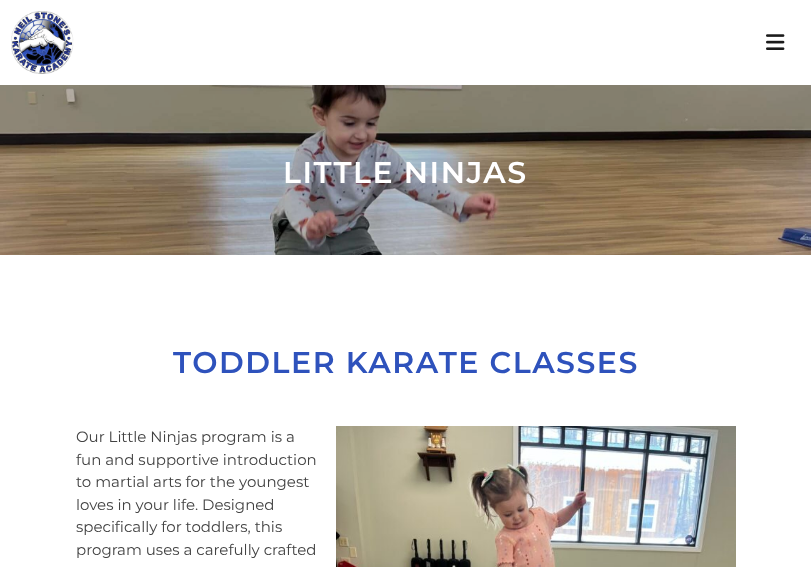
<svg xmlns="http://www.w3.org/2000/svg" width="811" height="567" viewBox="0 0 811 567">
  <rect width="100%" height="100%" fill="rgb(255,255,255)"/>
  <image x="11" y="11" width="63" height="63" href="pic1.png"/>
  <image x="766" y="34" width="19" height="16" href="pic2.png"/>
  <image x="0" y="85" width="811" height="170" href="pic3.png"/>
  <text x="283" y="183" font-family="Montserrat" font-size="30" font-weight="600" letter-spacing="1.5" fill="rgb(255,255,255)">LITTLE NINJAS</text>
  <text x="173" y="373" font-family="Montserrat" font-size="30" font-weight="600" letter-spacing="1.5" fill="rgb(46,82,188)">TODDLER KARATE CLASSES</text>
  <text x="76" y="442" font-family="Montserrat" font-size="15" fill="rgb(66,66,66)">Our Little Ninjas program is a</text>
  <image x="336" y="426" width="400" height="141" href="pic4.png"/>
  <g font-family="Montserrat" font-size="15" fill="rgb(66,66,66)">
    <text>
      <tspan x="76" y="465">fun and supportive introduction</tspan>
      <tspan x="76" y="487">to martial arts for the youngest</tspan>
      <tspan x="76" y="510">loves in your life. Designed</tspan>
      <tspan x="76" y="532">specifically for toddlers, this</tspan>
      <tspan x="76" y="555">program uses a carefully crafted</tspan>
    </text>
  </g>
</svg>
